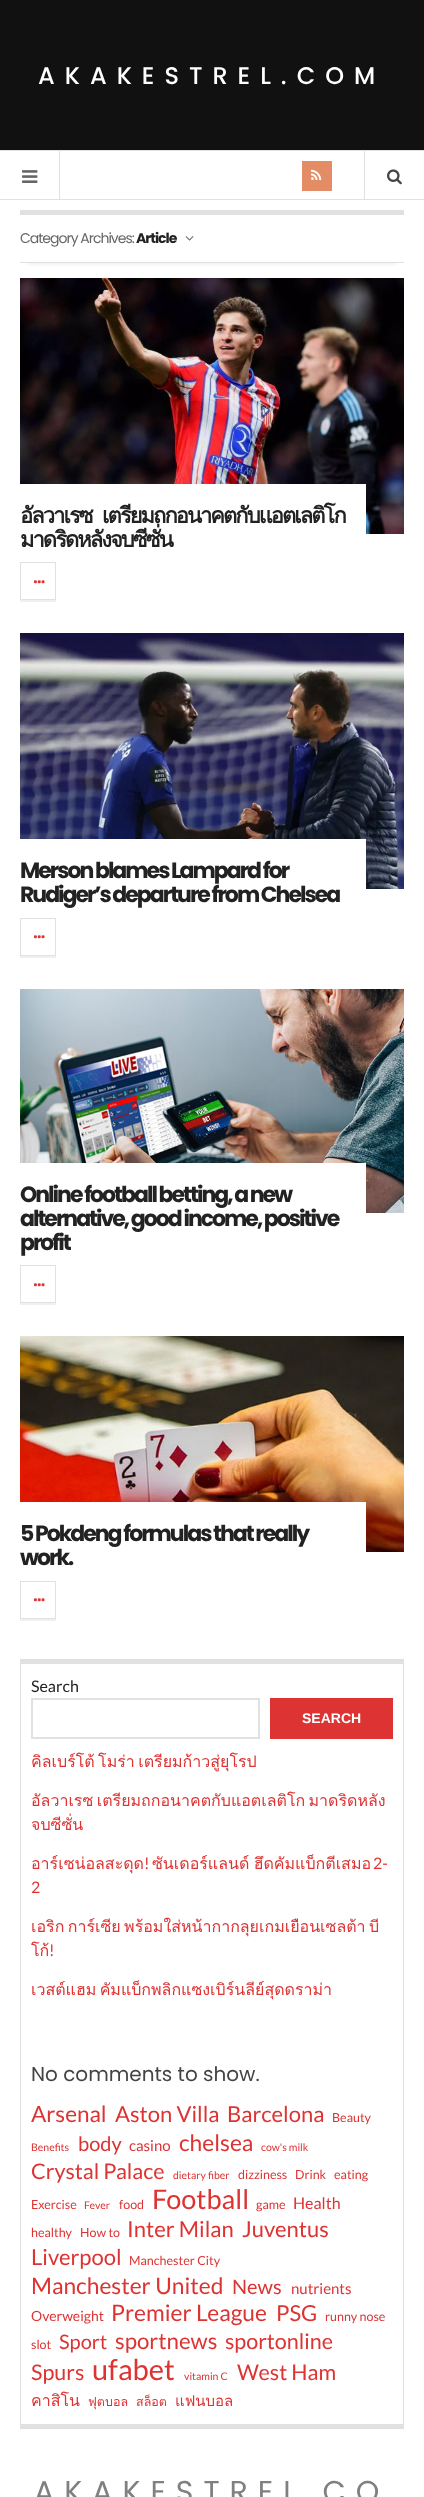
<svg xmlns="http://www.w3.org/2000/svg" width="424" height="2497" viewBox="0 0 424 2497">
  <defs>
    <clipPath id="clip1"><rect x="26" y="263" width="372" height="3"/></clipPath>
  </defs>
  <rect width="100%" height="100%" fill="rgb(255,255,255)"/>
  <rect x="0" y="0" width="424" height="150" fill="rgb(17,17,17)"/>
  <text x="38" y="84" font-family="Poppins" font-size="24" font-weight="500" letter-spacing="10" fill="rgb(255,255,255)">AKAKESTREL.COM</text>
  <rect x="0" y="150" width="424" height="1" fill="rgb(225,225,225)"/>
  <rect x="0" y="199" width="424" height="1" fill="rgb(225,225,225)"/>
  <rect x="59" y="151" width="1" height="48" fill="rgb(225,225,225)"/>
  <image x="22" y="170" width="16" height="13" href="pic1.png"/>
  <rect x="302" y="161" width="30" height="30" fill="rgb(227,140,101)"/>
  <image x="311" y="169" width="11" height="11" href="pic2.png"/>
  <rect x="364" y="151" width="1" height="48" fill="rgb(225,225,225)"/>
  <image x="387" y="169" width="15" height="16" href="pic3.png"/>
  <rect x="20" y="210" width="384" height="5" fill="rgb(225,225,225)"/>
  <rect x="20" y="2424" width="384" height="5" fill="rgb(225,225,225)"/>
  <g clip-path="url(#clip1)">
    <rect x="26" y="227" width="372" height="36" fill="rgba(0,0,0,0.1)" filter="blur(3px)"/>
  </g>
  <rect x="20" y="262" width="384" height="1" fill="rgb(225,225,225)"/>
  <text x="20" y="243" font-family="Poppins" font-size="14" letter-spacing="-1" fill="rgb(102,102,102)">Category Archives:</text>
  <text x="136" y="243" font-family="Poppins" font-size="14" font-weight="bold" letter-spacing="-1" fill="rgb(34,34,34)">Article</text>
  <image x="185" y="236" width="9" height="5" href="pic4.png"/>
  <image x="20" y="278" width="384" height="256" href="pic5.png"/>
  <rect x="20" y="484" width="346" height="50" fill="rgb(255,255,255)"/>
  <g font-family="Loma" font-size="22" font-weight="bold" letter-spacing="-2" fill="rgb(34,34,34)">
    <text>
      <tspan x="20" y="523" word-spacing="5">อัลวาเรซ เตรียมถกอนาคตกับแอตเลติโก</tspan>
      <tspan x="20" y="547">มาดริดหลังจบซีซั่น</tspan>
    </text>
  </g>
  <rect x="20" y="600" width="36" height="2" fill="rgb(240,240,240)"/>
  <rect x="20.5" y="562.5" width="35" height="37" fill="none" stroke="rgb(225,225,225)"/>
  <image x="34" y="580" width="11" height="4" href="pic6.png"/>
  <image x="20" y="633" width="384" height="256" href="pic7.png"/>
  <rect x="20" y="839" width="346" height="50" fill="rgb(255,255,255)"/>
  <g font-family="Poppins" font-size="22" font-weight="bold" letter-spacing="-2" fill="rgb(34,34,34)">
    <text>
      <tspan x="20" y="878">Merson blames Lampard for</tspan>
      <tspan x="20" y="902">Rudiger’s departure from Chelsea</tspan>
    </text>
  </g>
  <rect x="20" y="956" width="36" height="2" fill="rgb(240,240,240)"/>
  <rect x="20.5" y="918.5" width="35" height="37" fill="none" stroke="rgb(225,225,225)"/>
  <image x="34" y="935" width="11" height="4" href="pic6.png"/>
  <image x="20" y="989" width="384" height="224" href="pic8.png"/>
  <rect x="20" y="1163" width="346" height="50" fill="rgb(255,255,255)"/>
  <g font-family="Poppins" font-size="22" font-weight="bold" letter-spacing="-2" fill="rgb(34,34,34)">
    <text>
      <tspan x="20" y="1202">Online football betting, a new</tspan>
      <tspan x="20" y="1226">alternative, good income, positive</tspan>
      <tspan x="20" y="1250">profit</tspan>
    </text>
  </g>
  <rect x="20" y="1303" width="36" height="2" fill="rgb(240,240,240)"/>
  <rect x="20.5" y="1265.5" width="35" height="37" fill="none" stroke="rgb(225,225,225)"/>
  <image x="34" y="1283" width="11" height="4" href="pic6.png"/>
  <image x="20" y="1336" width="384" height="216" href="pic9.png"/>
  <rect x="20" y="1502" width="346" height="50" fill="rgb(255,255,255)"/>
  <g font-family="Poppins" font-size="22" font-weight="bold" letter-spacing="-2" fill="rgb(34,34,34)">
    <text>
      <tspan x="20" y="1541">5 Pokdeng formulas that really</tspan>
      <tspan x="20" y="1565">work.</tspan>
    </text>
  </g>
  <rect x="20" y="1619" width="36" height="2" fill="rgb(240,240,240)"/>
  <rect x="20.5" y="1581.5" width="35" height="37" fill="none" stroke="rgb(225,225,225)"/>
  <image x="34" y="1598" width="11" height="4" href="pic6.png"/>
  <rect x="20" y="1659" width="384" height="5" fill="rgb(225,225,225)"/>
  <rect x="403" y="1659" width="1" height="765" fill="rgb(225,225,225)"/>
  <rect x="20" y="1659" width="1" height="765" fill="rgb(225,225,225)"/>
  <text x="31" y="1692" font-family="Lato" font-size="16" fill="rgb(34,34,34)">Search</text>
  <rect x="32" y="1699" width="227" height="39" fill="none" stroke="rgb(225,225,225)" stroke-width="2"/>
  <rect x="270" y="1698" width="123" height="41" fill="rgb(221,51,51)"/>
  <text x="302" y="1723" font-family="Liberation Sans" font-size="14" font-weight="bold" fill="rgb(255,255,255)">SEARCH</text>
  <g font-family="Loma" font-size="16" fill="rgb(221,51,51)">
    <text x="31" y="1767" word-spacing="-2">คิลเบร์โต้ โมร่า เตรียมก้าวสู่ยุโรป</text>
    <text>
      <tspan x="31" y="1806" word-spacing="-2">อัลวาเรซ เตรียมถกอนาคตกับแอตเลติโก มาดริดหลัง</tspan>
      <tspan x="31" y="1830">จบซีซั่น</tspan>
    </text>
    <text x="31" y="1869">อาร์เซน่อลสะดุด</text>
  </g>
  <text x="144" y="1869" font-family="Lato" font-size="16" fill="rgb(221,51,51)">!</text>
  <text x="152" y="1869" word-spacing="-1" font-family="Loma" font-size="16" fill="rgb(221,51,51)">ซันเดอร์แลนด์ ฮึดคัมแบ็กตีเสมอ</text>
  <g font-family="Lato" font-size="16" fill="rgb(221,51,51)">
    <text x="373" y="1869">2-</text>
    <text x="31" y="1893">2</text>
  </g>
  <g font-family="Loma" font-size="16" fill="rgb(221,51,51)">
    <text>
      <tspan x="31" y="1932" word-spacing="-2">เอริก การ์เซีย พร้อมใส่หน้ากากลุยเกมเยือนเซลต้า บี</tspan>
      <tspan x="31" y="1956">โก้</tspan>
    </text>
  </g>
  <text x="49" y="1956" font-family="Lato" font-size="16" fill="rgb(221,51,51)">!</text>
  <text x="31" y="1995" word-spacing="-2" font-family="Loma" font-size="16" fill="rgb(221,51,51)">เวสต์แฮม คัมแบ็กพลิกแซงเบิร์นลีย์สุดดราม่า</text>
  <text x="31" y="2081" font-family="Poppins" font-size="20" fill="rgb(68,68,68)">No comments to show.</text>
  <text x="31" y="2122" font-family="Lato" font-size="22.5" fill="rgb(221,51,51)">Arsenal</text>
  <g font-family="Lato" font-size="22" fill="rgb(221,51,51)">
    <text x="115" y="2122">Aston Villa</text>
    <text x="227" y="2122">Barcelona</text>
  </g>
  <text x="332" y="2122" font-family="Lato" font-size="12.5" fill="rgb(221,51,51)">Beauty</text>
  <text x="31" y="2151" font-family="Lato" font-size="10.5" fill="rgb(221,51,51)">Benefits</text>
  <text x="78" y="2151" font-family="Lato" font-size="20" fill="rgb(221,51,51)">body</text>
  <text x="129" y="2151" font-family="Lato" font-size="15" fill="rgb(221,51,51)">casino</text>
  <text x="179" y="2151" font-family="Lato" font-size="22.75" fill="rgb(221,51,51)">chelsea</text>
  <text x="261" y="2151" font-family="Lato" font-size="10.5" fill="rgb(221,51,51)">cow's milk</text>
  <text x="31" y="2179" font-family="Lato" font-size="21.5" fill="rgb(221,51,51)">Crystal Palace</text>
  <text x="173" y="2179" font-family="Lato" font-size="10.5" fill="rgb(221,51,51)">dietary fiber</text>
  <g font-family="Lato" font-size="12.5" fill="rgb(221,51,51)">
    <text x="238" y="2179">dizziness</text>
    <text x="295" y="2179">Drink</text>
    <text x="334" y="2179">eating</text>
    <text x="31" y="2209">Exercise</text>
  </g>
  <text x="84" y="2209" font-family="Lato" font-size="10.5" fill="rgb(221,51,51)">Fever</text>
  <text x="119" y="2209" font-family="Lato" font-size="12.5" fill="rgb(221,51,51)">food</text>
  <text x="152" y="2209" font-family="Lato" font-size="27" fill="rgb(221,51,51)">Football</text>
  <text x="256" y="2209" font-family="Lato" font-size="12.5" fill="rgb(221,51,51)">game</text>
  <text x="293" y="2209" font-family="Lato" font-size="16" fill="rgb(221,51,51)">Health</text>
  <g font-family="Lato" font-size="12.5" fill="rgb(221,51,51)">
    <text x="31" y="2237">healthy</text>
    <text x="80" y="2237">How to</text>
  </g>
  <g font-family="Lato" font-size="22" fill="rgb(221,51,51)">
    <text x="127" y="2237">Inter Milan</text>
    <text x="242" y="2237">Juventus</text>
    <text x="31" y="2265">Liverpool</text>
  </g>
  <text x="129" y="2265" font-family="Lato" font-size="12.5" fill="rgb(221,51,51)">Manchester City</text>
  <text x="31" y="2294" font-family="Lato" font-size="22.75" fill="rgb(221,51,51)">Manchester United</text>
  <text x="232" y="2294" font-family="Lato" font-size="20" fill="rgb(221,51,51)">News</text>
  <text x="291" y="2294" font-family="Lato" font-size="15" fill="rgb(221,51,51)">nutrients</text>
  <text x="31" y="2321" font-family="Lato" font-size="14" fill="rgb(221,51,51)">Overweight</text>
  <text x="111" y="2321" font-family="Lato" font-size="22.75" fill="rgb(221,51,51)">Premier League</text>
  <text x="276" y="2321" font-family="Lato" font-size="22" fill="rgb(221,51,51)">PSG</text>
  <g font-family="Lato" font-size="12.5" fill="rgb(221,51,51)">
    <text x="325" y="2321">runny nose</text>
    <text x="31" y="2349">slot</text>
  </g>
  <text x="59" y="2349" font-family="Lato" font-size="20" fill="rgb(221,51,51)">Sport</text>
  <text x="115" y="2349" font-family="Lato" font-size="22.25" fill="rgb(221,51,51)">sportnews</text>
  <g font-family="Lato" font-size="21.5" fill="rgb(221,51,51)">
    <text x="225" y="2349">sportonline</text>
    <text x="31" y="2380">Spurs</text>
  </g>
  <text x="92" y="2380" font-family="Lato" font-size="29" fill="rgb(221,51,51)">ufabet</text>
  <text x="184" y="2380" font-family="Lato" font-size="10.5" fill="rgb(221,51,51)">vitamin C</text>
  <text x="237" y="2380" font-family="Lato" font-size="21.5" fill="rgb(221,51,51)">West Ham</text>
  <text x="31" y="2406" font-family="Loma" font-size="16" fill="rgb(221,51,51)">คาสิโน</text>
  <g font-family="Loma" font-size="12.5" fill="rgb(221,51,51)">
    <text x="88" y="2406">ฟุตบอล</text>
    <text x="136" y="2406">สล็อต</text>
  </g>
  <text x="175" y="2406" font-family="Loma" font-size="15" fill="rgb(221,51,51)">แฟนบอล</text>
  <text x="34" y="2502" font-family="Poppins" font-size="30" letter-spacing="10" fill="rgb(128,128,128)">AKAKESTREL.CO</text>
</svg>
